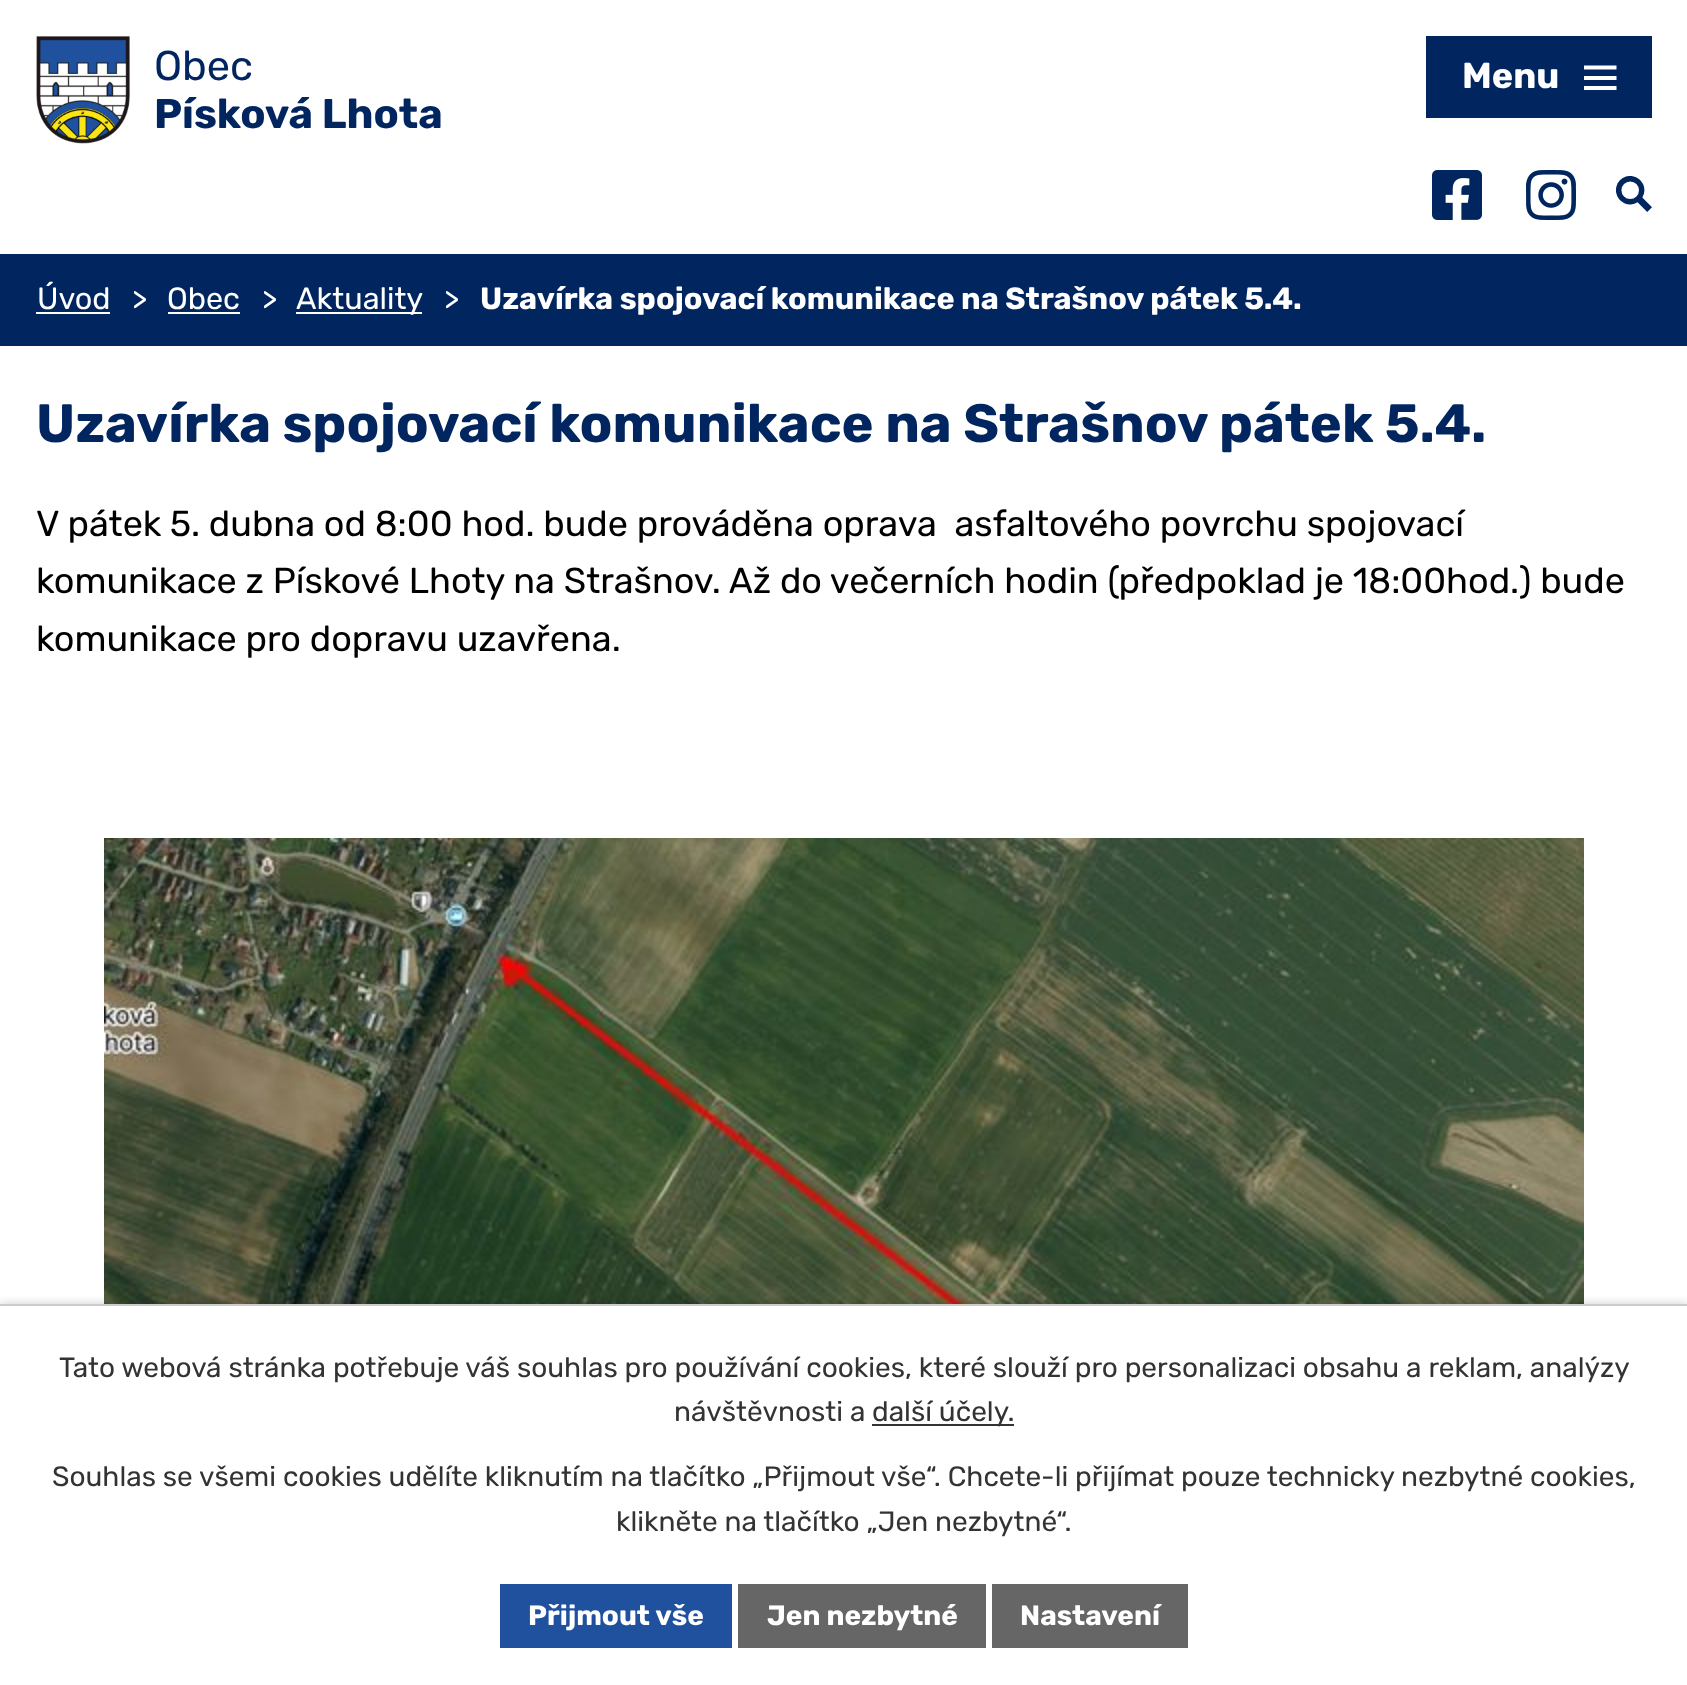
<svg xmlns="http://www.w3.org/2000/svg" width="1687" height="1685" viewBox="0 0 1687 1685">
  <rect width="100%" height="100%" fill="rgb(255,255,255)"/>
  <image x="36" y="36" width="94" height="108" href="pic1.png"/>
  <text x="154" y="80" font-family="Rubik" font-size="41.5" fill="rgb(0,37,95)">Obec</text>
  <text x="154" y="128" font-family="Rubik" font-size="41.5" font-weight="bold" fill="rgb(0,37,95)">Písková Lhota</text>
  <image x="1432" y="170" width="50" height="50" href="pic2.png"/>
  <image x="1526" y="170" width="50" height="50" href="pic3.png"/>
  <image x="1616" y="176" width="36" height="36" href="pic4.png"/>
  <rect x="1426" y="36" width="226" height="82" fill="rgb(0,37,95)"/>
  <text x="1462" y="88" font-family="Rubik" font-size="36" font-weight="bold" fill="rgb(255,255,255)">Menu</text>
  <path d="M1584 90V86H1616.5V90ZM1584 65.5H1616.5V69.5H1584ZM1584 80V76H1616.5V80Z" fill="rgb(255,255,255)"/>
  <rect x="0" y="254" width="1687" height="92" fill="rgb(0,37,95)"/>
  <text x="37" y="309" font-family="Rubik" font-size="30.6" fill="rgb(255,255,255)">Úvod</text>
  <rect x="36" y="312" width="74" height="2" fill="rgb(255,255,255)"/>
  <g font-family="Rubik" font-size="30.6" fill="rgb(255,255,255)">
    <text x="132" y="309">&gt;</text>
    <text x="167" y="309">Obec</text>
  </g>
  <rect x="168" y="312" width="72" height="2" fill="rgb(255,255,255)"/>
  <text x="262" y="309" font-family="Rubik" font-size="30.6" fill="rgb(255,255,255)">&gt;</text>
  <rect x="296" y="312" width="126" height="2" fill="rgb(255,255,255)"/>
  <g font-family="Rubik" font-size="30.6" fill="rgb(255,255,255)">
    <text x="296" y="309">Aktuality</text>
    <text x="444" y="309">&gt;</text>
  </g>
  <text x="480" y="309" font-family="Rubik" font-size="30.6" font-weight="bold" fill="rgb(255,255,255)">Uzavírka spojovací komunikace na Strašnov pátek 5.4.</text>
  <text x="36" y="442" font-family="Rubik" font-size="54" font-weight="bold" fill="rgb(0,37,95)">Uzavírka spojovací komunikace na Strašnov pátek 5.4.</text>
  <g font-family="Rubik" font-size="36" fill="rgb(0,0,0)">
    <text xml:space="preserve"><tspan x="36" y="536">V pátek 5. dubna od 8:00 hod. bude prováděna oprava  asfaltového povrchu spojovací</tspan><tspan x="36" y="593">komunikace z Pískové Lhoty na Strašnov. Až do večerních hodin (předpoklad je 18:00hod.) bude</tspan><tspan x="36" y="651">komunikace pro dopravu uzavřena.</tspan></text>
  </g>
  <image x="104" y="838" width="1480" height="466" href="pic5.png"/>
  <rect x="0" y="1304" width="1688" height="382" fill="rgba(0,0,0,0.2)" filter="blur(5px)"/>
  <rect x="0" y="1306" width="1687" height="379" fill="rgb(255,255,255)"/>
  <rect x="0" y="1304" width="1687" height="2" fill="rgb(204,204,204)"/>
  <g font-family="Rubik" font-size="28" fill="rgb(51,51,51)">
    <text x="59" y="1377">Tato webová stránka potřebuje váš souhlas pro používání cookies, které slouží pro personalizaci obsahu a reklam, analýzy</text>
    <text x="674" y="1421">návštěvnosti a</text>
  </g>
  <rect x="872" y="1424" width="142" height="2" fill="rgb(51,51,51)"/>
  <g font-family="Rubik" font-size="28" fill="rgb(51,51,51)">
    <text x="872" y="1421">další účely.</text>
    <text x="52" y="1486">Souhlas se všemi cookies udělíte kliknutím na tlačítko „Přijmout vše“. Chcete-li přijímat pouze technicky nezbytné cookies,</text>
    <text x="616" y="1531">klikněte na tlačítko „Jen nezbytné“.</text>
  </g>
  <rect x="500" y="1584" width="232" height="64" fill="rgb(31,81,158)"/>
  <text x="528" y="1625" font-family="Rubik" font-size="28" font-weight="bold" fill="rgb(255,255,255)">Přijmout vše</text>
  <rect x="738" y="1584" width="248" height="64" fill="rgb(102,102,102)"/>
  <text x="767" y="1625" font-family="Rubik" font-size="28" font-weight="bold" fill="rgb(255,255,255)">Jen nezbytné</text>
  <rect x="992" y="1584" width="196" height="64" fill="rgb(102,102,102)"/>
  <text x="1020" y="1625" font-family="Rubik" font-size="28" font-weight="bold" fill="rgb(255,255,255)">Nastavení</text>
</svg>
